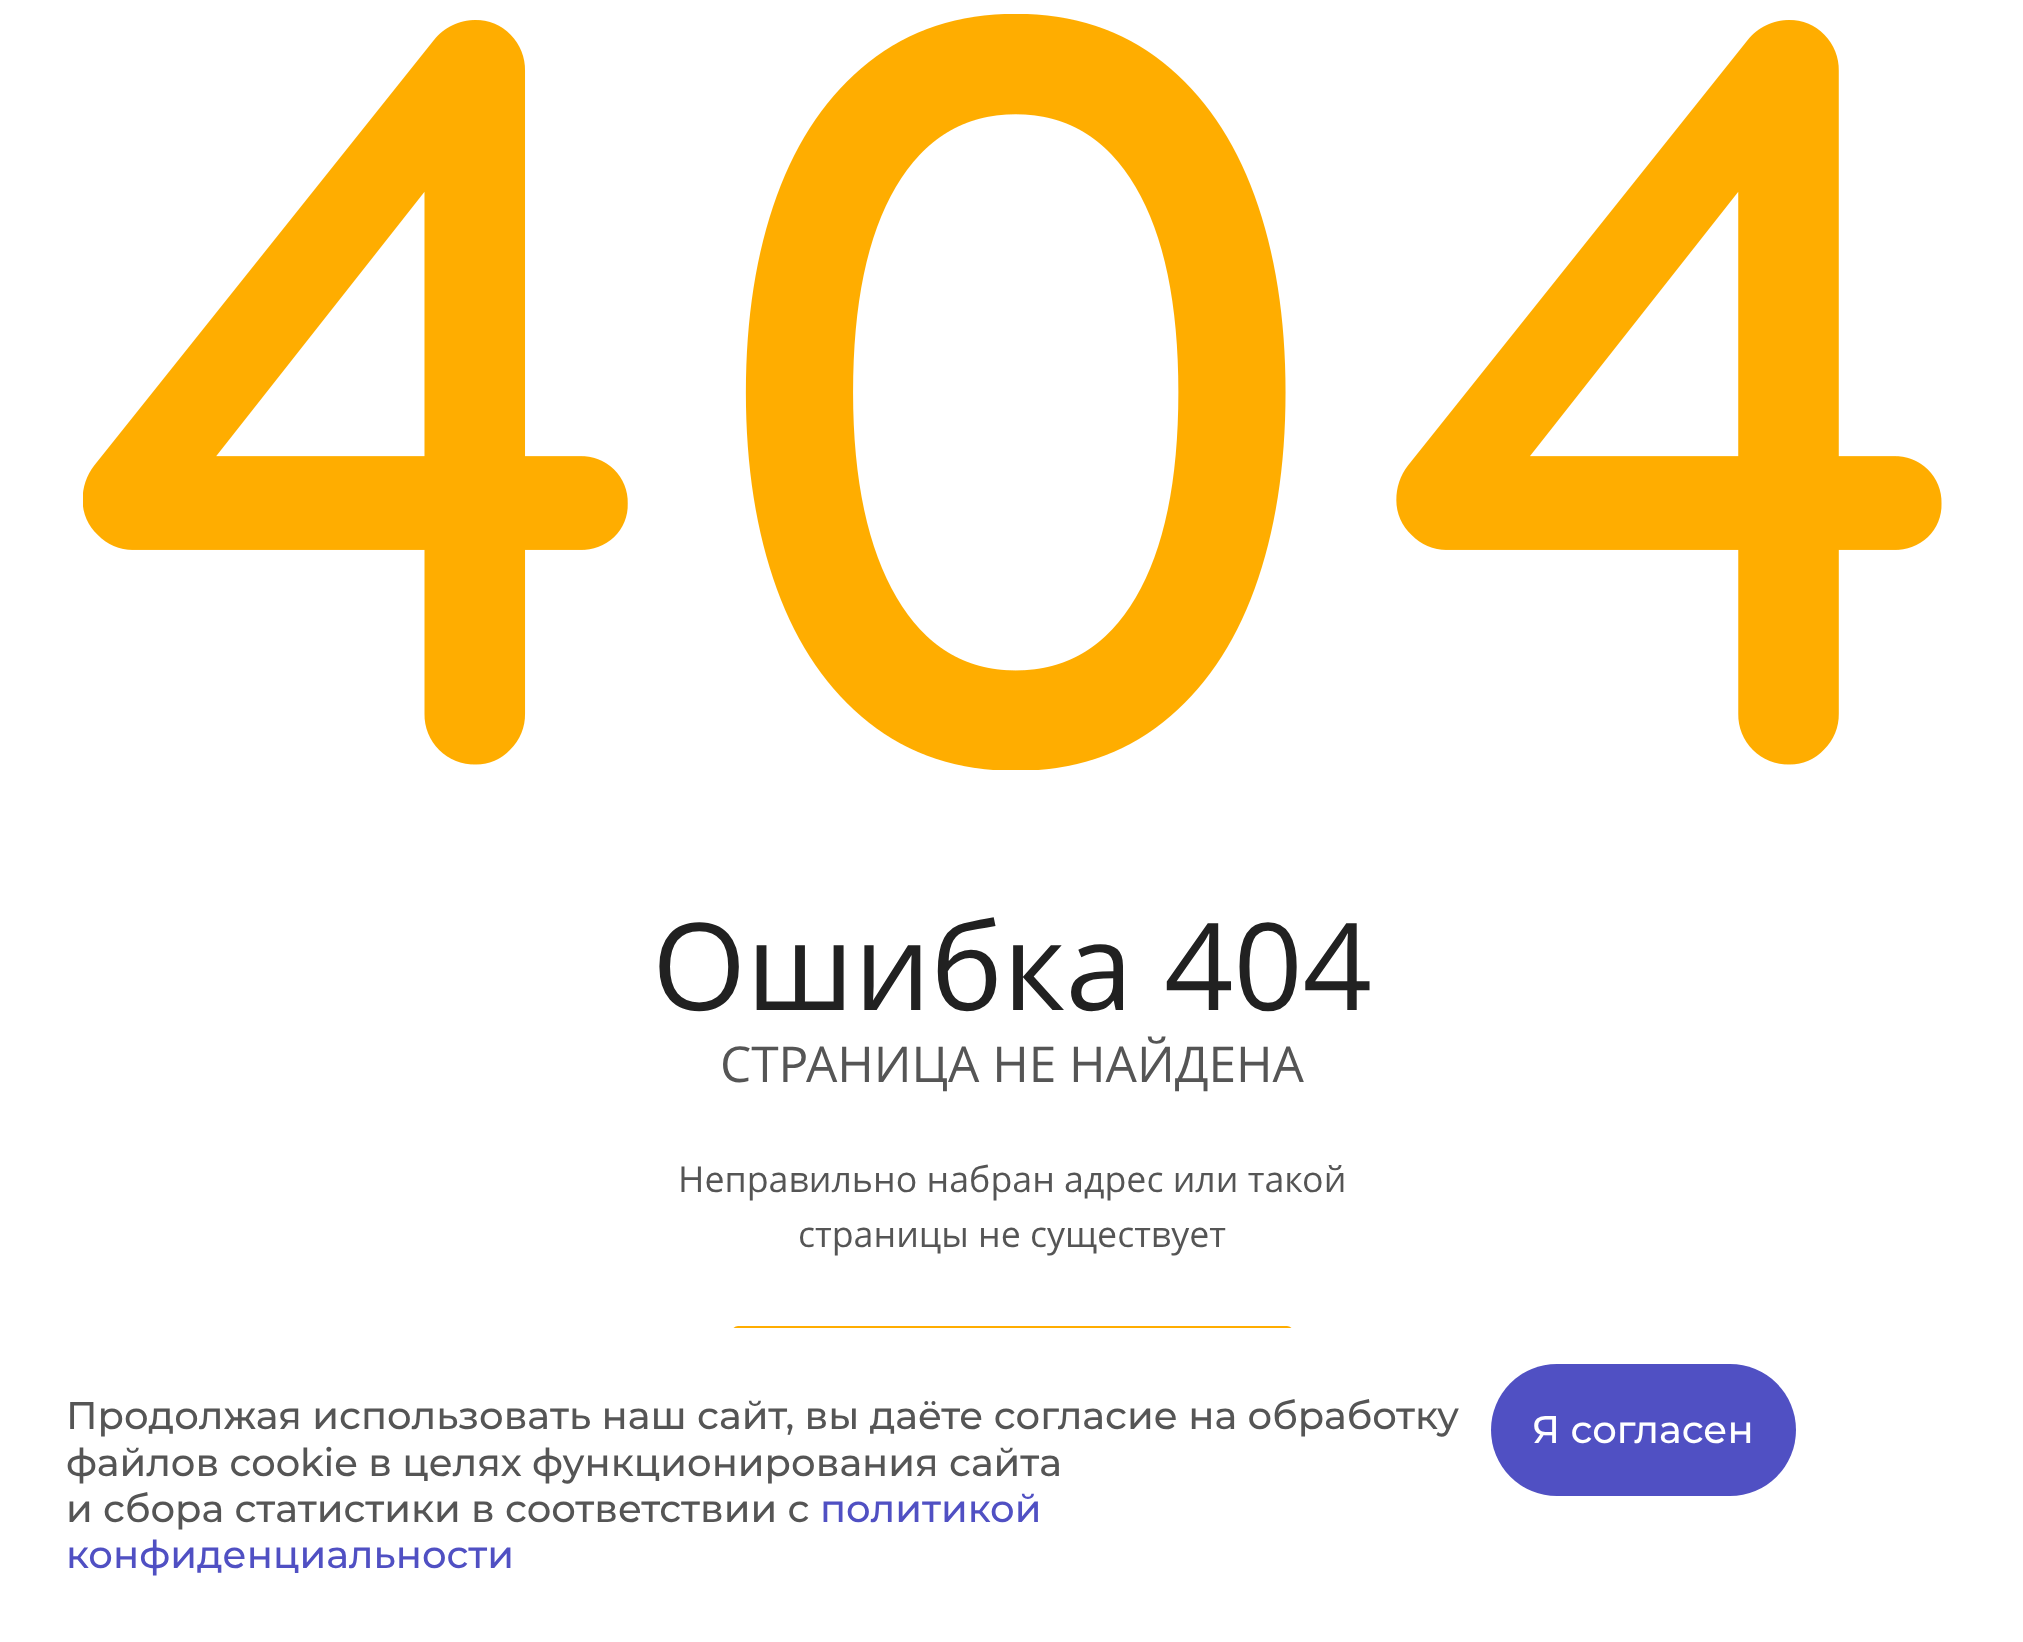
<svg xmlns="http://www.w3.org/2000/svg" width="2023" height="1642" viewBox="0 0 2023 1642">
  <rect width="100%" height="100%" fill="rgb(255,255,255)"/>
  <image x="83" y="14" width="1859" height="756" href="pic1.png"/>
  <text x="652" y="1010" font-family="Open Sans" font-size="121" fill="rgb(33,33,33)">Ошибка 404</text>
  <text x="720" y="1082" font-family="Open Sans" font-size="49.5" fill="rgb(85,85,85)">СТРАНИЦА НЕ НАЙДЕНА</text>
  <g font-family="Open Sans" font-size="35.75" fill="rgb(85,85,85)">
    <text x="678" y="1192">Неправильно набран адрес или такой</text>
    <text x="798" y="1247">страницы не существует</text>
  </g>
  <rect x="733.5" y="1327.5" width="558" height="107" rx="4.5" fill="none" stroke="rgb(255,173,0)" stroke-width="3"/>
  <rect x="732" y="1328" width="561" height="108" fill="rgb(255,255,255)"/>
  <g font-family="Montserrat" font-size="38.5" font-weight="500" fill="rgb(85,85,85)">
    <text>
      <tspan x="66" y="1429">Продолжая использовать наш сайт, вы даёте согласие на обработку</tspan>
      <tspan x="66" y="1476">файлов cookie в целях функционирования сайта</tspan>
      <tspan x="66" y="1522">и сбора статистики в соответствии с</tspan>
    </text>
  </g>
  <g font-family="Montserrat" font-size="38.5" font-weight="500" fill="rgb(80,80,195)">
    <text x="820" y="1522">политикой</text>
    <text x="66" y="1568">конфиденциальности</text>
  </g>
  <rect x="1491" y="1364" width="305" height="132" rx="66" fill="rgb(80,80,195)"/>
  <text x="1532" y="1443" font-family="Montserrat" font-size="38.5" font-weight="500" fill="rgb(255,255,255)">Я согласен</text>
</svg>
